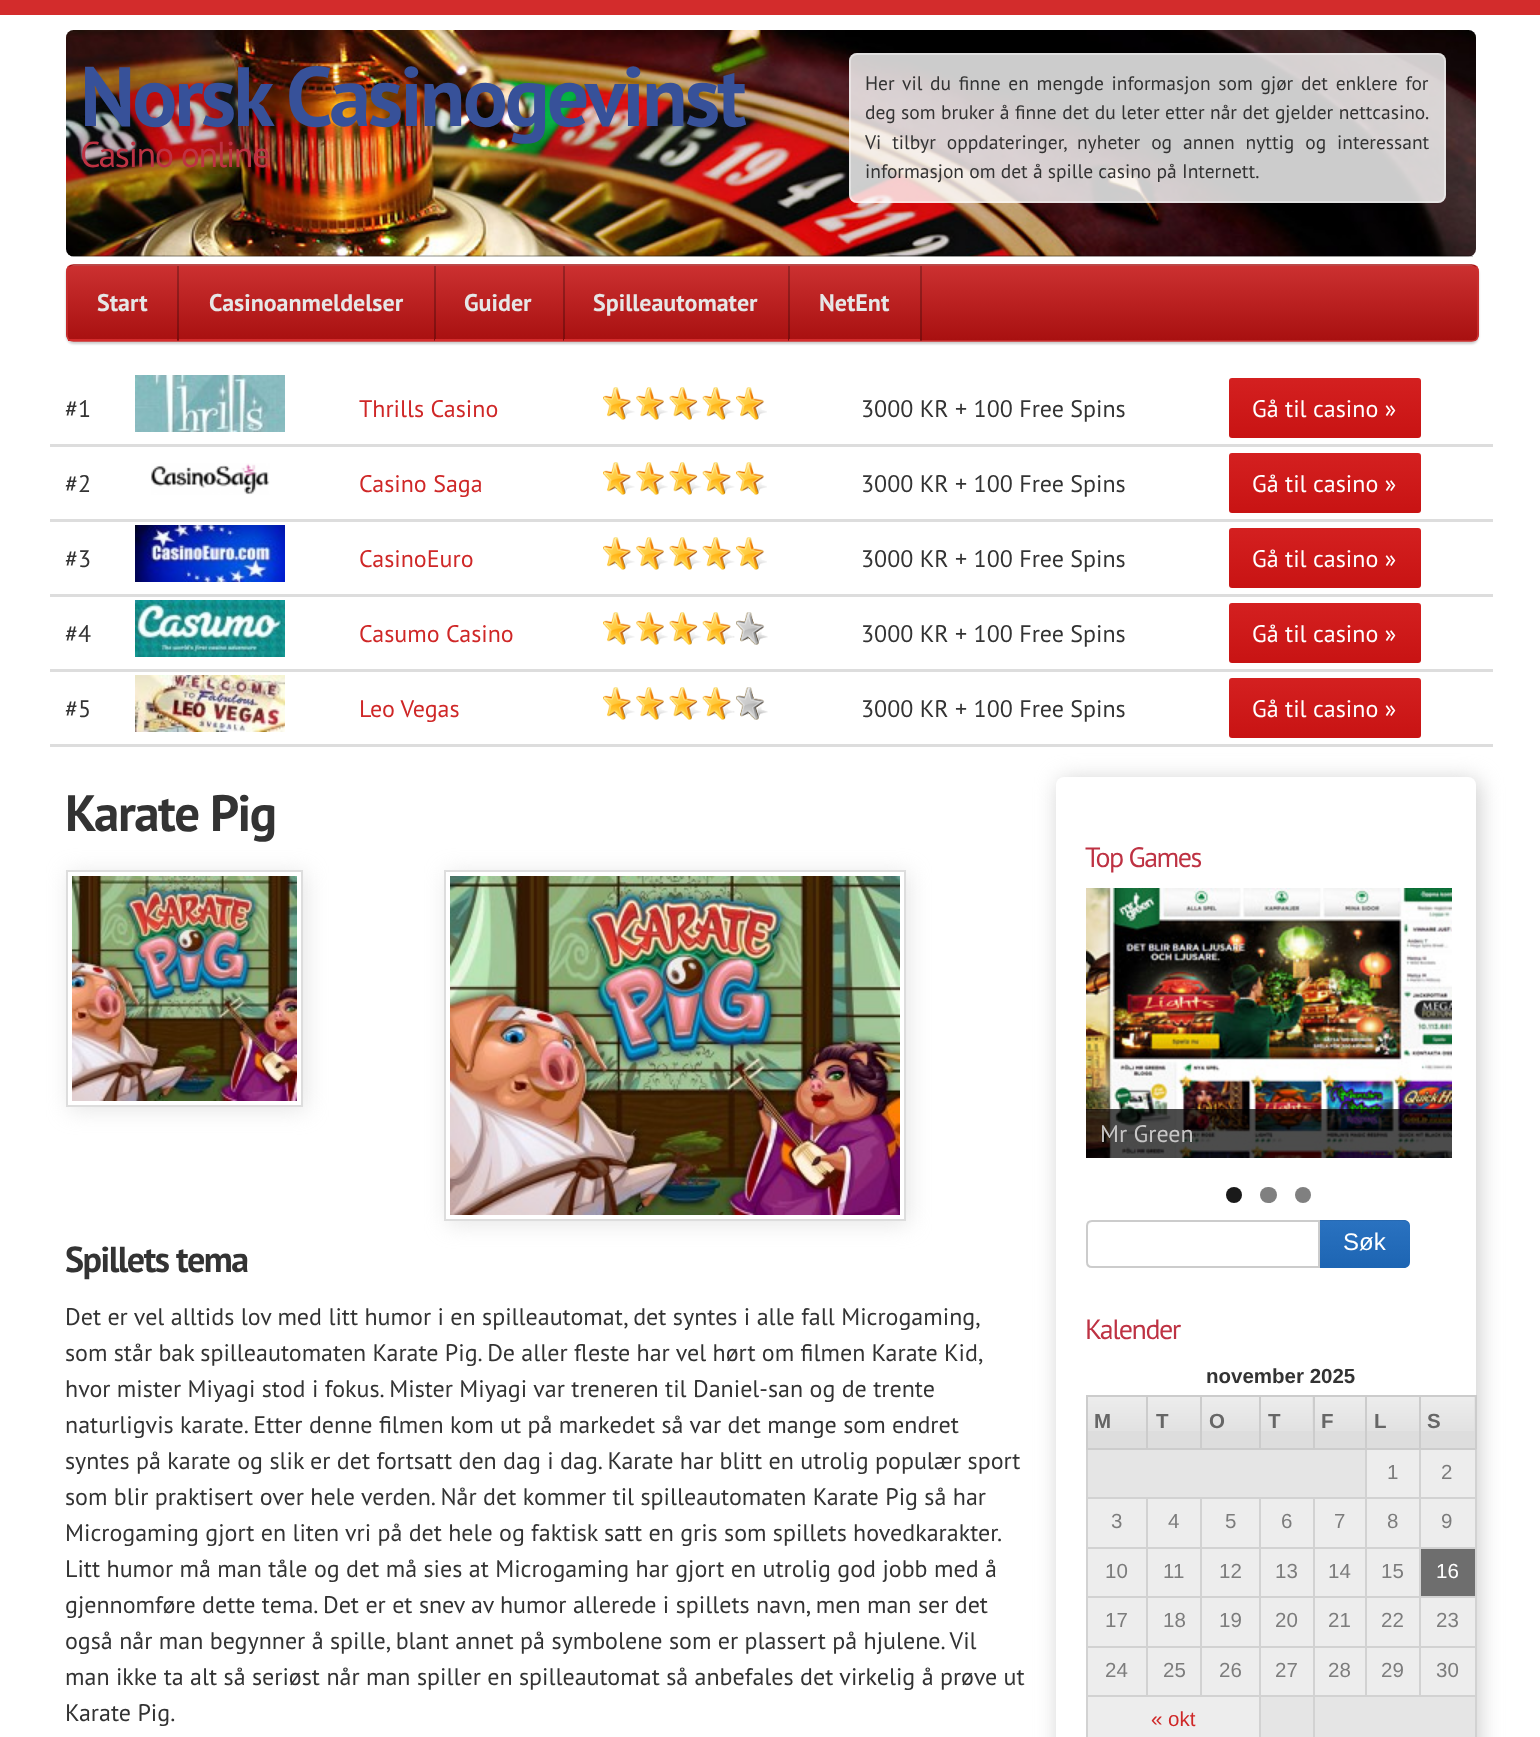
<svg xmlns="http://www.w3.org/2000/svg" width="1540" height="1737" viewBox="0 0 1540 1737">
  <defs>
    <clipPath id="clip1"><rect x="66" y="264" width="1413" height="78" rx="8"/></clipPath>
    <linearGradient id="g1" gradientUnits="userSpaceOnUse" x1="773" y1="265" x2="773" y2="341"><stop offset="0" stop-color="rgb(204,49,49)"/><stop offset="1" stop-color="rgb(168,16,16)"/></linearGradient>
    <linearGradient id="g2" gradientUnits="userSpaceOnUse" x1="1325" y1="378" x2="1325" y2="438"><stop offset="0" stop-color="rgb(212,32,32)"/><stop offset="1" stop-color="rgb(200,19,19)"/></linearGradient>
    <linearGradient id="g3" gradientUnits="userSpaceOnUse" x1="1325" y1="453" x2="1325" y2="513"><stop offset="0" stop-color="rgb(212,32,32)"/><stop offset="1" stop-color="rgb(200,19,19)"/></linearGradient>
    <linearGradient id="g4" gradientUnits="userSpaceOnUse" x1="1325" y1="528" x2="1325" y2="588"><stop offset="0" stop-color="rgb(212,32,32)"/><stop offset="1" stop-color="rgb(200,19,19)"/></linearGradient>
    <linearGradient id="g5" gradientUnits="userSpaceOnUse" x1="1325" y1="603" x2="1325" y2="663"><stop offset="0" stop-color="rgb(212,32,32)"/><stop offset="1" stop-color="rgb(200,19,19)"/></linearGradient>
    <linearGradient id="g6" gradientUnits="userSpaceOnUse" x1="1325" y1="678" x2="1325" y2="738"><stop offset="0" stop-color="rgb(212,32,32)"/><stop offset="1" stop-color="rgb(200,19,19)"/></linearGradient>
    <clipPath id="clip2"><path d="M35 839H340V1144H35ZM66 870H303V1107H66Z" clip-rule="evenodd"/></clipPath>
    <clipPath id="clip3"><path d="M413 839H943V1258H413ZM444 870H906V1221H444Z" clip-rule="evenodd"/></clipPath>
    <linearGradient id="g7" gradientUnits="userSpaceOnUse" x1="1365" y1="1220" x2="1365" y2="1268"><stop offset="0" stop-color="rgb(42,114,192)"/><stop offset="1" stop-color="rgb(29,101,179)"/></linearGradient>
  </defs>
  <rect width="100%" height="100%" fill="rgb(255,255,255)"/>
  <rect x="0" y="0" width="1540" height="15" fill="rgb(211,44,44)"/>
  <image x="66" y="30" width="1410" height="227" href="pic1.png"/>
  <rect x="71" y="255" width="1402" height="2" fill="rgba(0,0,0,0.22)"/>
  <text x="80" y="126" font-family="PT Sans" font-size="84" font-weight="bold" letter-spacing="-3" fill="rgb(55,81,153)">Norsk Casinogevinst</text>
  <rect x="849" y="53" width="597" height="150" rx="8" fill="rgba(255,255,255,0.8)"/>
  <rect x="850" y="54" width="595" height="148" rx="7" fill="none" stroke="rgba(255,255,255,0.39)" stroke-width="2"/>
  <g font-family="PT Sans" font-size="19.5" fill="rgb(51,51,51)">
    <text>
      <tspan x="865" y="90" word-spacing="2.5">Her vil du finne en mengde informasjon som gjør det enklere for</tspan>
      <tspan x="865" y="119" word-spacing="0.25">deg som bruker å finne det du leter etter når det gjelder nettcasino.</tspan>
      <tspan x="865" y="149" word-spacing="5.75">Vi tilbyr oppdateringer, nyheter og annen nyttig og interessant</tspan>
      <tspan x="865" y="178">informasjon om det å spille casino på Internett.</tspan>
    </text>
  </g>
  <text x="80" y="167" font-family="PT Sans" font-size="36" letter-spacing="-1.5" fill="rgb(190,50,67)">Casino online</text>
  <rect x="66" y="266" width="1413" height="78" rx="8" fill="rgba(0,0,0,0.2)" filter="blur(1px)"/>
  <g clip-path="url(#clip1)">
    <rect x="66" y="266" width="1413" height="75" fill="url(#g1)"/>
  </g>
  <path d="M68.5 266.5C70 265.5 71.5 265 73.5 265H1471.5C1473.5 265 1475 265.5 1476.5 266.5" fill="none" stroke="rgb(168,16,16)" stroke-width="1.5"/>
  <path d="M1476.5 266.5C1477.5 268 1478 269.5 1478 271.5V334.5C1478 336.5 1477.5 338 1476.5 339.5C1475 340.5 1473.5 341 1471.5 341H73.5C71.5 341 70 340.5 68.5 339.5C67.5 338 67 336.5 67 334.5V271.5C67 269.5 67.5 268 68.5 266.5" fill="none" stroke="rgb(204,49,49)" stroke-width="1.5"/>
  <rect x="177" y="266" width="2" height="75" fill="rgba(0,0,0,0.25)"/>
  <rect x="68" y="339" width="109" height="2" fill="rgb(211,44,44)"/>
  <text x="97" y="311" font-family="PT Sans" font-size="24" font-weight="bold" fill="rgb(230,230,230)">Start</text>
  <rect x="434" y="266" width="2" height="75" fill="rgba(0,0,0,0.25)"/>
  <rect x="179" y="339" width="255" height="2" fill="rgb(211,44,44)"/>
  <text x="209" y="311" font-family="PT Sans" font-size="24" font-weight="bold" fill="rgb(230,230,230)">Casinoanmeldelser</text>
  <rect x="563" y="266" width="2" height="75" fill="rgba(0,0,0,0.25)"/>
  <rect x="435" y="339" width="128" height="2" fill="rgb(211,44,44)"/>
  <text x="464" y="311" font-family="PT Sans" font-size="24" font-weight="bold" fill="rgb(230,230,230)">Guider</text>
  <rect x="788" y="266" width="2" height="75" fill="rgba(0,0,0,0.25)"/>
  <rect x="564" y="339" width="224" height="2" fill="rgb(211,44,44)"/>
  <text x="593" y="311" font-family="PT Sans" font-size="24" font-weight="bold" fill="rgb(230,230,230)">Spilleautomater</text>
  <rect x="920" y="266" width="2" height="75" fill="rgba(0,0,0,0.25)"/>
  <rect x="789" y="339" width="131" height="2" fill="rgb(211,44,44)"/>
  <text x="819" y="311" font-family="PT Sans" font-size="24" font-weight="bold" fill="rgb(230,230,230)">NetEnt</text>
  <text x="65" y="417" font-family="PT Sans" font-size="24" fill="rgb(51,51,51)">#1</text>
  <image x="135" y="375" width="150" height="57" href="pic2.png"/>
  <text x="359" y="417" font-family="PT Sans" font-size="24" fill="rgb(207,39,39)">Thrills Casino</text>
  <image x="603" y="387" width="164" height="33" href="pic3.png"/>
  <text x="861" y="417" font-family="PT Sans" font-size="24" fill="rgb(51,51,51)">3000 KR + 100 Free Spins</text>
  <rect x="50" y="444" width="1443" height="3" fill="rgb(221,221,221)"/>
  <rect x="1229" y="378" width="192" height="60" rx="3" fill="url(#g2)"/>
  <text x="1252" y="417" font-family="PT Sans" font-size="24" fill="rgb(255,255,255)">Gå til casino »</text>
  <text x="65" y="492" font-family="PT Sans" font-size="24" fill="rgb(51,51,51)">#2</text>
  <image x="151" y="463" width="119" height="32" href="pic4.png"/>
  <text x="359" y="492" font-family="PT Sans" font-size="24" fill="rgb(207,39,39)">Casino Saga</text>
  <image x="603" y="462" width="164" height="33" href="pic5.png"/>
  <text x="861" y="492" font-family="PT Sans" font-size="24" fill="rgb(51,51,51)">3000 KR + 100 Free Spins</text>
  <rect x="50" y="519" width="1443" height="3" fill="rgb(221,221,221)"/>
  <rect x="1229" y="453" width="192" height="60" rx="3" fill="url(#g3)"/>
  <text x="1252" y="492" font-family="PT Sans" font-size="24" fill="rgb(255,255,255)">Gå til casino »</text>
  <text x="65" y="567" font-family="PT Sans" font-size="24" fill="rgb(51,51,51)">#3</text>
  <image x="135" y="525" width="150" height="57" href="pic6.png"/>
  <text x="359" y="567" font-family="PT Sans" font-size="24" fill="rgb(207,39,39)">CasinoEuro</text>
  <image x="603" y="537" width="164" height="33" href="pic3.png"/>
  <text x="861" y="567" font-family="PT Sans" font-size="24" fill="rgb(51,51,51)">3000 KR + 100 Free Spins</text>
  <rect x="50" y="594" width="1443" height="3" fill="rgb(221,221,221)"/>
  <rect x="1229" y="528" width="192" height="60" rx="3" fill="url(#g4)"/>
  <text x="1252" y="567" font-family="PT Sans" font-size="24" fill="rgb(255,255,255)">Gå til casino »</text>
  <text x="65" y="642" font-family="PT Sans" font-size="24" fill="rgb(51,51,51)">#4</text>
  <image x="135" y="600" width="150" height="57" href="pic7.png"/>
  <text x="359" y="642" font-family="PT Sans" font-size="24" fill="rgb(207,39,39)">Casumo Casino</text>
  <image x="603" y="612" width="165" height="33" href="pic8.png"/>
  <text x="861" y="642" font-family="PT Sans" font-size="24" fill="rgb(51,51,51)">3000 KR + 100 Free Spins</text>
  <rect x="50" y="669" width="1443" height="3" fill="rgb(221,221,221)"/>
  <rect x="1229" y="603" width="192" height="60" rx="3" fill="url(#g5)"/>
  <text x="1252" y="642" font-family="PT Sans" font-size="24" fill="rgb(255,255,255)">Gå til casino »</text>
  <text x="65" y="717" font-family="PT Sans" font-size="24" fill="rgb(51,51,51)">#5</text>
  <image x="135" y="675" width="150" height="57" href="pic9.png"/>
  <text x="359" y="717" font-family="PT Sans" font-size="24" fill="rgb(207,39,39)">Leo Vegas</text>
  <image x="603" y="687" width="165" height="33" href="pic8.png"/>
  <text x="861" y="717" font-family="PT Sans" font-size="24" fill="rgb(51,51,51)">3000 KR + 100 Free Spins</text>
  <rect x="1059" y="780" width="420" height="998" rx="8" fill="rgb(204,204,204)" filter="blur(11px)"/>
  <rect x="50" y="744" width="1443" height="3" fill="rgb(221,221,221)"/>
  <rect x="1229" y="678" width="192" height="60" rx="3" fill="url(#g6)"/>
  <text x="1252" y="717" font-family="PT Sans" font-size="24" fill="rgb(255,255,255)">Gå til casino »</text>
  <g clip-path="url(#clip2)">
    <rect x="69" y="873" width="237" height="237" fill="rgba(204,204,204,0.51)" filter="blur(11px)"/>
  </g>
  <text x="65" y="831" font-family="PT Sans" font-size="51" font-weight="bold" letter-spacing="-1.5" fill="rgb(51,51,51)">Karate Pig</text>
  <rect x="67" y="871" width="235" height="235" fill="none" stroke="rgb(221,221,221)" stroke-width="2"/>
  <image x="72" y="876" width="225" height="225" href="pic10.png"/>
  <g clip-path="url(#clip3)">
    <rect x="447" y="873" width="462" height="351" fill="rgba(204,204,204,0.51)" filter="blur(11px)"/>
  </g>
  <rect x="445" y="871" width="460" height="349" fill="none" stroke="rgb(221,221,221)" stroke-width="2"/>
  <image x="450" y="876" width="450" height="339" href="pic11.png"/>
  <text x="65" y="1272" font-family="PT Sans" font-size="36" font-weight="bold" letter-spacing="-1.5" fill="rgb(51,51,51)">Spillets tema</text>
  <g font-family="PT Sans" font-size="24" fill="rgb(51,51,51)">
    <text>
      <tspan x="65" y="1325">Det er vel alltids lov med litt humor i en spilleautomat, det syntes i alle fall Microgaming,</tspan>
      <tspan x="65" y="1361" word-spacing="-0.1">som står bak spilleautomaten Karate Pig. De aller fleste har vel hørt om filmen Karate Kid,</tspan>
      <tspan x="65" y="1397">hvor mister Miyagi stod i fokus. Mister Miyagi var treneren til Daniel-san og de trente</tspan>
      <tspan x="65" y="1433">naturligvis karate. Etter denne filmen kom ut på markedet så var det mange som endret</tspan>
      <tspan x="65" y="1469">syntes på karate og slik er det fortsatt den dag i dag. Karate har blitt en utrolig populær sport</tspan>
      <tspan x="65" y="1505">som blir praktisert over hele verden. Når det kommer til spilleautomaten Karate Pig så har</tspan>
      <tspan x="65" y="1541" word-spacing="-0.1">Microgaming gjort en liten vri på det hele og faktisk satt en gris som spillets hovedkarakter.</tspan>
      <tspan x="65" y="1577">Litt humor må man tåle og det må sies at Microgaming har gjort en utrolig god jobb med å</tspan>
      <tspan x="65" y="1613">gjennomføre dette tema. Det er et snev av humor allerede i spillets navn, men man ser det</tspan>
      <tspan x="65" y="1649">også når man begynner å spille, blant annet på symbolene som er plassert på hjulene. Vil</tspan>
      <tspan x="65" y="1685">man ikke ta alt så seriøst når man spiller en spilleautomat så anbefales det virkelig å prøve ut</tspan>
      <tspan x="65" y="1721">Karate Pig.</tspan>
    </text>
  </g>
  <rect x="1056" y="777" width="420" height="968" rx="8" fill="rgb(255,255,255)"/>
  <text x="1085" y="867" font-family="PT Sans" font-size="28" letter-spacing="-1.5" fill="rgb(190,50,67)">Top Games</text>
  <image x="1086" y="888" width="366" height="270" href="pic12.png"/>
  <rect x="1086" y="1109" width="366" height="49" fill="rgba(0,0,0,0.7)"/>
  <text x="1100" y="1142" font-family="PT Sans" font-size="24" fill="rgb(199,198,198)">Mr Green</text>
  <circle cx="1234" cy="1195" r="8" fill="rgb(26,26,26)"/>
  <rect x="1260" y="1187" width="17" height="16" rx="8" fill="rgb(128,128,128)"/>
  <circle cx="1303" cy="1195" r="8" fill="rgb(128,128,128)"/>
  <path d="M1092 1222H1318V1266H1319V1221H1093C1090 1221 1088 1224 1088 1227C1088 1225 1090 1222 1092 1222Z" fill="rgb(236,236,236)"/>
  <path d="M1092 1221H1319V1267H1092C1089 1267 1087 1265 1087 1262V1226C1087 1223 1089 1221 1092 1221Z" fill="none" stroke="rgb(204,204,204)" stroke-width="2"/>
  <path d="M1320 1220H1404C1407.5 1220 1410 1222.5 1410 1226V1262C1410 1265.5 1407.5 1268 1404 1268H1320Z" fill="url(#g7)"/>
  <path d="M1320 1221H1404C1407 1221 1410 1224 1410 1227V1226C1410 1223 1407 1220 1404 1220H1320Z" fill="rgba(0,0,0,0.07)"/>
  <text x="1343" y="1250" font-family="Liberation Sans" font-size="24" fill="rgb(255,255,255)">Søk</text>
  <text x="1085" y="1339" font-family="PT Sans" font-size="28" letter-spacing="-1.5" fill="rgb(190,50,67)">Kalender</text>
  <text x="1206" y="1383" font-family="Liberation Sans" font-size="20.5" font-weight="bold" fill="rgb(51,51,51)">november 2025</text>
  <rect x="1088" y="1431" width="58" height="17" fill="rgb(221,221,221)"/>
  <image x="1088" y="1397" width="58" height="34" href="pic13.png"/>
  <rect x="1419" y="1395" width="57" height="2" fill="rgb(204,204,204)"/>
  <rect x="1419" y="1497" width="57" height="2" fill="rgb(210,210,210)"/>
  <rect x="1419" y="1547" width="57" height="2" fill="rgb(210,210,210)"/>
  <rect x="1419" y="1596" width="57" height="2" fill="rgb(210,210,210)"/>
  <rect x="1419" y="1646" width="57" height="2" fill="rgb(210,210,210)"/>
  <rect x="1475" y="1646" width="2" height="51" fill="rgb(210,210,210)"/>
  <rect x="1475" y="1596" width="2" height="51" fill="rgb(210,210,210)"/>
  <rect x="1475" y="1547" width="2" height="51" fill="rgb(210,210,210)"/>
  <rect x="1475" y="1448" width="2" height="100" fill="rgb(210,210,210)"/>
  <rect x="1475" y="1395" width="2" height="54" fill="rgb(204,204,204)"/>
  <rect x="1419" y="1695" width="57" height="2" fill="rgb(210,210,210)"/>
  <rect x="1419" y="1646" width="2" height="51" fill="rgb(210,210,210)"/>
  <rect x="1365" y="1646" width="56" height="2" fill="rgb(210,210,210)"/>
  <rect x="1419" y="1596" width="2" height="51" fill="rgb(210,210,210)"/>
  <rect x="1365" y="1596" width="56" height="2" fill="rgb(210,210,210)"/>
  <rect x="1419" y="1547" width="2" height="51" fill="rgb(210,210,210)"/>
  <rect x="1365" y="1547" width="56" height="2" fill="rgb(210,210,210)"/>
  <rect x="1419" y="1497" width="2" height="51" fill="rgb(210,210,210)"/>
  <rect x="1365" y="1497" width="56" height="2" fill="rgb(210,210,210)"/>
  <rect x="1419" y="1448" width="2" height="51" fill="rgb(210,210,210)"/>
  <rect x="1419" y="1448" width="57" height="2" fill="rgb(204,204,204)"/>
  <rect x="1419" y="1395" width="2" height="54" fill="rgb(204,204,204)"/>
  <rect x="1365" y="1395" width="56" height="2" fill="rgb(204,204,204)"/>
  <rect x="1365" y="1695" width="56" height="2" fill="rgb(210,210,210)"/>
  <rect x="1365" y="1646" width="2" height="51" fill="rgb(210,210,210)"/>
  <rect x="1313" y="1646" width="54" height="2" fill="rgb(210,210,210)"/>
  <rect x="1365" y="1596" width="2" height="51" fill="rgb(210,210,210)"/>
  <rect x="1313" y="1596" width="54" height="2" fill="rgb(210,210,210)"/>
  <rect x="1365" y="1547" width="2" height="51" fill="rgb(210,210,210)"/>
  <rect x="1313" y="1547" width="54" height="2" fill="rgb(210,210,210)"/>
  <rect x="1365" y="1497" width="2" height="51" fill="rgb(210,210,210)"/>
  <rect x="1313" y="1497" width="54" height="2" fill="rgb(210,210,210)"/>
  <rect x="1365" y="1448" width="2" height="51" fill="rgb(210,210,210)"/>
  <rect x="1365" y="1448" width="56" height="2" fill="rgb(204,204,204)"/>
  <rect x="1365" y="1395" width="2" height="54" fill="rgb(204,204,204)"/>
  <rect x="1313" y="1395" width="54" height="2" fill="rgb(204,204,204)"/>
  <rect x="1313" y="1448" width="54" height="2" fill="rgb(204,204,204)"/>
  <rect x="1313" y="1395" width="2" height="54" fill="rgb(204,204,204)"/>
  <rect x="1259" y="1395" width="55" height="2" fill="rgb(204,204,204)"/>
  <rect x="1259" y="1448" width="55" height="2" fill="rgb(204,204,204)"/>
  <rect x="1259" y="1395" width="2" height="54" fill="rgb(204,204,204)"/>
  <rect x="1200" y="1395" width="60" height="2" fill="rgb(204,204,204)"/>
  <rect x="1200" y="1448" width="60" height="2" fill="rgb(204,204,204)"/>
  <rect x="1200" y="1395" width="2" height="54" fill="rgb(204,204,204)"/>
  <rect x="1146" y="1395" width="56" height="2" fill="rgb(204,204,204)"/>
  <rect x="1146" y="1448" width="56" height="2" fill="rgb(204,204,204)"/>
  <rect x="1146" y="1395" width="2" height="54" fill="rgb(204,204,204)"/>
  <rect x="1086" y="1395" width="62" height="2" fill="rgb(204,204,204)"/>
  <rect x="1313" y="1695" width="54" height="2" fill="rgb(210,210,210)"/>
  <rect x="1313" y="1646" width="2" height="51" fill="rgb(210,210,210)"/>
  <rect x="1259" y="1646" width="55" height="2" fill="rgb(210,210,210)"/>
  <rect x="1313" y="1596" width="2" height="51" fill="rgb(210,210,210)"/>
  <rect x="1259" y="1596" width="55" height="2" fill="rgb(210,210,210)"/>
  <rect x="1313" y="1547" width="2" height="51" fill="rgb(210,210,210)"/>
  <rect x="1259" y="1547" width="55" height="2" fill="rgb(210,210,210)"/>
  <rect x="1313" y="1497" width="2" height="51" fill="rgb(210,210,210)"/>
  <rect x="1259" y="1497" width="55" height="2" fill="rgb(210,210,210)"/>
  <rect x="1259" y="1695" width="55" height="2" fill="rgb(210,210,210)"/>
  <rect x="1259" y="1646" width="2" height="51" fill="rgb(210,210,210)"/>
  <rect x="1200" y="1646" width="60" height="2" fill="rgb(210,210,210)"/>
  <rect x="1259" y="1596" width="2" height="51" fill="rgb(210,210,210)"/>
  <rect x="1200" y="1596" width="60" height="2" fill="rgb(210,210,210)"/>
  <rect x="1259" y="1547" width="2" height="51" fill="rgb(210,210,210)"/>
  <rect x="1200" y="1547" width="60" height="2" fill="rgb(210,210,210)"/>
  <rect x="1259" y="1497" width="2" height="51" fill="rgb(210,210,210)"/>
  <rect x="1200" y="1497" width="60" height="2" fill="rgb(210,210,210)"/>
  <rect x="1200" y="1695" width="60" height="2" fill="rgb(210,210,210)"/>
  <rect x="1200" y="1646" width="2" height="51" fill="rgb(210,210,210)"/>
  <rect x="1146" y="1646" width="56" height="2" fill="rgb(210,210,210)"/>
  <rect x="1200" y="1596" width="2" height="51" fill="rgb(210,210,210)"/>
  <rect x="1146" y="1596" width="56" height="2" fill="rgb(210,210,210)"/>
  <rect x="1200" y="1547" width="2" height="51" fill="rgb(210,210,210)"/>
  <rect x="1146" y="1547" width="56" height="2" fill="rgb(210,210,210)"/>
  <rect x="1200" y="1497" width="2" height="51" fill="rgb(210,210,210)"/>
  <rect x="1146" y="1497" width="56" height="2" fill="rgb(210,210,210)"/>
  <rect x="1146" y="1695" width="56" height="2" fill="rgb(210,210,210)"/>
  <rect x="1146" y="1646" width="2" height="51" fill="rgb(210,210,210)"/>
  <rect x="1086" y="1646" width="62" height="2" fill="rgb(210,210,210)"/>
  <rect x="1146" y="1596" width="2" height="51" fill="rgb(210,210,210)"/>
  <rect x="1086" y="1596" width="62" height="2" fill="rgb(210,210,210)"/>
  <rect x="1146" y="1547" width="2" height="51" fill="rgb(210,210,210)"/>
  <rect x="1086" y="1547" width="62" height="2" fill="rgb(210,210,210)"/>
  <rect x="1146" y="1497" width="2" height="51" fill="rgb(210,210,210)"/>
  <rect x="1086" y="1497" width="62" height="2" fill="rgb(210,210,210)"/>
  <rect x="1086" y="1695" width="62" height="2" fill="rgb(210,210,210)"/>
  <rect x="1086" y="1646" width="2" height="91" fill="rgb(210,210,210)"/>
  <rect x="1086" y="1596" width="2" height="51" fill="rgb(210,210,210)"/>
  <rect x="1086" y="1547" width="2" height="51" fill="rgb(210,210,210)"/>
  <rect x="1086" y="1448" width="2" height="100" fill="rgb(210,210,210)"/>
  <rect x="1086" y="1448" width="62" height="2" fill="rgb(204,204,204)"/>
  <rect x="1086" y="1395" width="2" height="54" fill="rgb(204,204,204)"/>
  <text x="1094" y="1428" font-family="Liberation Sans" font-size="20.5" font-weight="bold" fill="rgb(102,102,102)">M</text>
  <rect x="1148" y="1431" width="52" height="17" fill="rgb(221,221,221)"/>
  <image x="1148" y="1397" width="52" height="34" href="pic14.png"/>
  <text x="1156" y="1428" font-family="Liberation Sans" font-size="20.5" font-weight="bold" fill="rgb(102,102,102)">T</text>
  <rect x="1202" y="1431" width="57" height="17" fill="rgb(221,221,221)"/>
  <image x="1202" y="1397" width="57" height="34" href="pic15.png"/>
  <text x="1209" y="1428" font-family="Liberation Sans" font-size="20.5" font-weight="bold" fill="rgb(102,102,102)">O</text>
  <rect x="1261" y="1397" width="52" height="51" fill="rgb(221,221,221)"/>
  <image x="1261" y="1397" width="52" height="34" href="pic16.png"/>
  <text x="1268" y="1428" font-family="Liberation Sans" font-size="20.5" font-weight="bold" fill="rgb(102,102,102)">T</text>
  <rect x="1315" y="1431" width="50" height="17" fill="rgb(221,221,221)"/>
  <image x="1315" y="1397" width="50" height="34" href="pic17.png"/>
  <text x="1321" y="1428" font-family="Liberation Sans" font-size="20.5" font-weight="bold" fill="rgb(102,102,102)">F</text>
  <rect x="1367" y="1431" width="52" height="17" fill="rgb(221,221,221)"/>
  <image x="1367" y="1397" width="52" height="34" href="pic14.png"/>
  <text x="1374" y="1428" font-family="Liberation Sans" font-size="20.5" font-weight="bold" fill="rgb(102,102,102)">L</text>
  <rect x="1421" y="1397" width="54" height="51" fill="rgb(221,221,221)"/>
  <image x="1421" y="1397" width="54" height="34" href="pic18.png"/>
  <text x="1427" y="1428" font-family="Liberation Sans" font-size="20.5" font-weight="bold" fill="rgb(102,102,102)">S</text>
  <rect x="1088" y="1450" width="277" height="47" fill="rgb(229,229,229)"/>
  <rect x="1367" y="1450" width="52" height="47" fill="rgb(237,237,237)"/>
  <text x="1387" y="1479" font-family="Liberation Sans" font-size="20.5" fill="rgb(124,124,124)">1</text>
  <rect x="1421" y="1450" width="54" height="47" fill="rgb(237,237,237)"/>
  <text x="1441" y="1479" font-family="Liberation Sans" font-size="20.5" fill="rgb(124,124,124)">2</text>
  <rect x="1088" y="1499" width="58" height="48" fill="rgb(237,237,237)"/>
  <text x="1111" y="1528" font-family="Liberation Sans" font-size="20.5" fill="rgb(124,124,124)">3</text>
  <rect x="1148" y="1499" width="52" height="48" fill="rgb(237,237,237)"/>
  <text x="1168" y="1528" font-family="Liberation Sans" font-size="20.5" fill="rgb(124,124,124)">4</text>
  <rect x="1202" y="1499" width="57" height="48" fill="rgb(237,237,237)"/>
  <text x="1225" y="1528" font-family="Liberation Sans" font-size="20.5" fill="rgb(124,124,124)">5</text>
  <rect x="1261" y="1499" width="52" height="48" fill="rgb(237,237,237)"/>
  <text x="1281" y="1528" font-family="Liberation Sans" font-size="20.5" fill="rgb(124,124,124)">6</text>
  <rect x="1315" y="1499" width="50" height="48" fill="rgb(237,237,237)"/>
  <text x="1334" y="1528" font-family="Liberation Sans" font-size="20.5" fill="rgb(124,124,124)">7</text>
  <rect x="1367" y="1499" width="52" height="48" fill="rgb(237,237,237)"/>
  <text x="1387" y="1528" font-family="Liberation Sans" font-size="20.5" fill="rgb(124,124,124)">8</text>
  <rect x="1421" y="1499" width="54" height="48" fill="rgb(237,237,237)"/>
  <text x="1441" y="1528" font-family="Liberation Sans" font-size="20.5" fill="rgb(124,124,124)">9</text>
  <rect x="1088" y="1549" width="58" height="47" fill="rgb(237,237,237)"/>
  <text x="1105" y="1578" font-family="Liberation Sans" font-size="20.5" fill="rgb(124,124,124)">10</text>
  <rect x="1148" y="1549" width="52" height="47" fill="rgb(237,237,237)"/>
  <text x="1163" y="1578" font-family="Liberation Sans" font-size="20.5" fill="rgb(124,124,124)">11</text>
  <rect x="1202" y="1549" width="57" height="47" fill="rgb(237,237,237)"/>
  <text x="1219" y="1578" font-family="Liberation Sans" font-size="20.5" fill="rgb(124,124,124)">12</text>
  <rect x="1261" y="1549" width="52" height="47" fill="rgb(237,237,237)"/>
  <text x="1275" y="1578" font-family="Liberation Sans" font-size="20.5" fill="rgb(124,124,124)">13</text>
  <rect x="1315" y="1549" width="50" height="47" fill="rgb(237,237,237)"/>
  <text x="1328" y="1578" font-family="Liberation Sans" font-size="20.5" fill="rgb(124,124,124)">14</text>
  <rect x="1367" y="1549" width="52" height="47" fill="rgb(237,237,237)"/>
  <text x="1381" y="1578" font-family="Liberation Sans" font-size="20.5" fill="rgb(124,124,124)">15</text>
  <rect x="1421" y="1549" width="54" height="47" fill="rgb(110,110,110)"/>
  <text x="1436" y="1578" font-family="Liberation Sans" font-size="20.5" fill="rgb(255,255,255)">16</text>
  <rect x="1088" y="1598" width="58" height="48" fill="rgb(237,237,237)"/>
  <text x="1105" y="1627" font-family="Liberation Sans" font-size="20.5" fill="rgb(124,124,124)">17</text>
  <rect x="1148" y="1598" width="52" height="48" fill="rgb(237,237,237)"/>
  <text x="1163" y="1627" font-family="Liberation Sans" font-size="20.5" fill="rgb(124,124,124)">18</text>
  <rect x="1202" y="1598" width="57" height="48" fill="rgb(237,237,237)"/>
  <text x="1219" y="1627" font-family="Liberation Sans" font-size="20.5" fill="rgb(124,124,124)">19</text>
  <rect x="1261" y="1598" width="52" height="48" fill="rgb(237,237,237)"/>
  <text x="1275" y="1627" font-family="Liberation Sans" font-size="20.5" fill="rgb(124,124,124)">20</text>
  <rect x="1315" y="1598" width="50" height="48" fill="rgb(237,237,237)"/>
  <text x="1328" y="1627" font-family="Liberation Sans" font-size="20.5" fill="rgb(124,124,124)">21</text>
  <rect x="1367" y="1598" width="52" height="48" fill="rgb(237,237,237)"/>
  <text x="1381" y="1627" font-family="Liberation Sans" font-size="20.5" fill="rgb(124,124,124)">22</text>
  <rect x="1421" y="1598" width="54" height="48" fill="rgb(237,237,237)"/>
  <text x="1436" y="1627" font-family="Liberation Sans" font-size="20.5" fill="rgb(124,124,124)">23</text>
  <rect x="1088" y="1648" width="58" height="47" fill="rgb(237,237,237)"/>
  <text x="1105" y="1677" font-family="Liberation Sans" font-size="20.5" fill="rgb(124,124,124)">24</text>
  <rect x="1148" y="1648" width="52" height="47" fill="rgb(237,237,237)"/>
  <text x="1163" y="1677" font-family="Liberation Sans" font-size="20.5" fill="rgb(124,124,124)">25</text>
  <rect x="1202" y="1648" width="57" height="47" fill="rgb(237,237,237)"/>
  <text x="1219" y="1677" font-family="Liberation Sans" font-size="20.5" fill="rgb(124,124,124)">26</text>
  <rect x="1261" y="1648" width="52" height="47" fill="rgb(237,237,237)"/>
  <text x="1275" y="1677" font-family="Liberation Sans" font-size="20.5" fill="rgb(124,124,124)">27</text>
  <rect x="1315" y="1648" width="50" height="47" fill="rgb(237,237,237)"/>
  <text x="1328" y="1677" font-family="Liberation Sans" font-size="20.5" fill="rgb(124,124,124)">28</text>
  <rect x="1367" y="1648" width="52" height="47" fill="rgb(237,237,237)"/>
  <text x="1381" y="1677" font-family="Liberation Sans" font-size="20.5" fill="rgb(124,124,124)">29</text>
  <rect x="1421" y="1648" width="54" height="47" fill="rgb(237,237,237)"/>
  <text x="1436" y="1677" font-family="Liberation Sans" font-size="20.5" fill="rgb(124,124,124)">30</text>
  <rect x="1088" y="1697" width="171" height="40" fill="rgb(237,237,237)"/>
  <text x="1151" y="1726" font-family="Liberation Sans" font-size="20.5" fill="rgb(207,39,39)">« okt</text>
  <rect x="1261" y="1697" width="52" height="40" fill="rgb(229,229,229)"/>
  <rect x="1259" y="1695" width="2" height="42" fill="rgb(210,210,210)"/>
  <rect x="1315" y="1697" width="160" height="40" fill="rgb(229,229,229)"/>
  <rect x="1475" y="1695" width="2" height="42" fill="rgb(210,210,210)"/>
  <rect x="1313" y="1695" width="2" height="42" fill="rgb(210,210,210)"/>
</svg>
